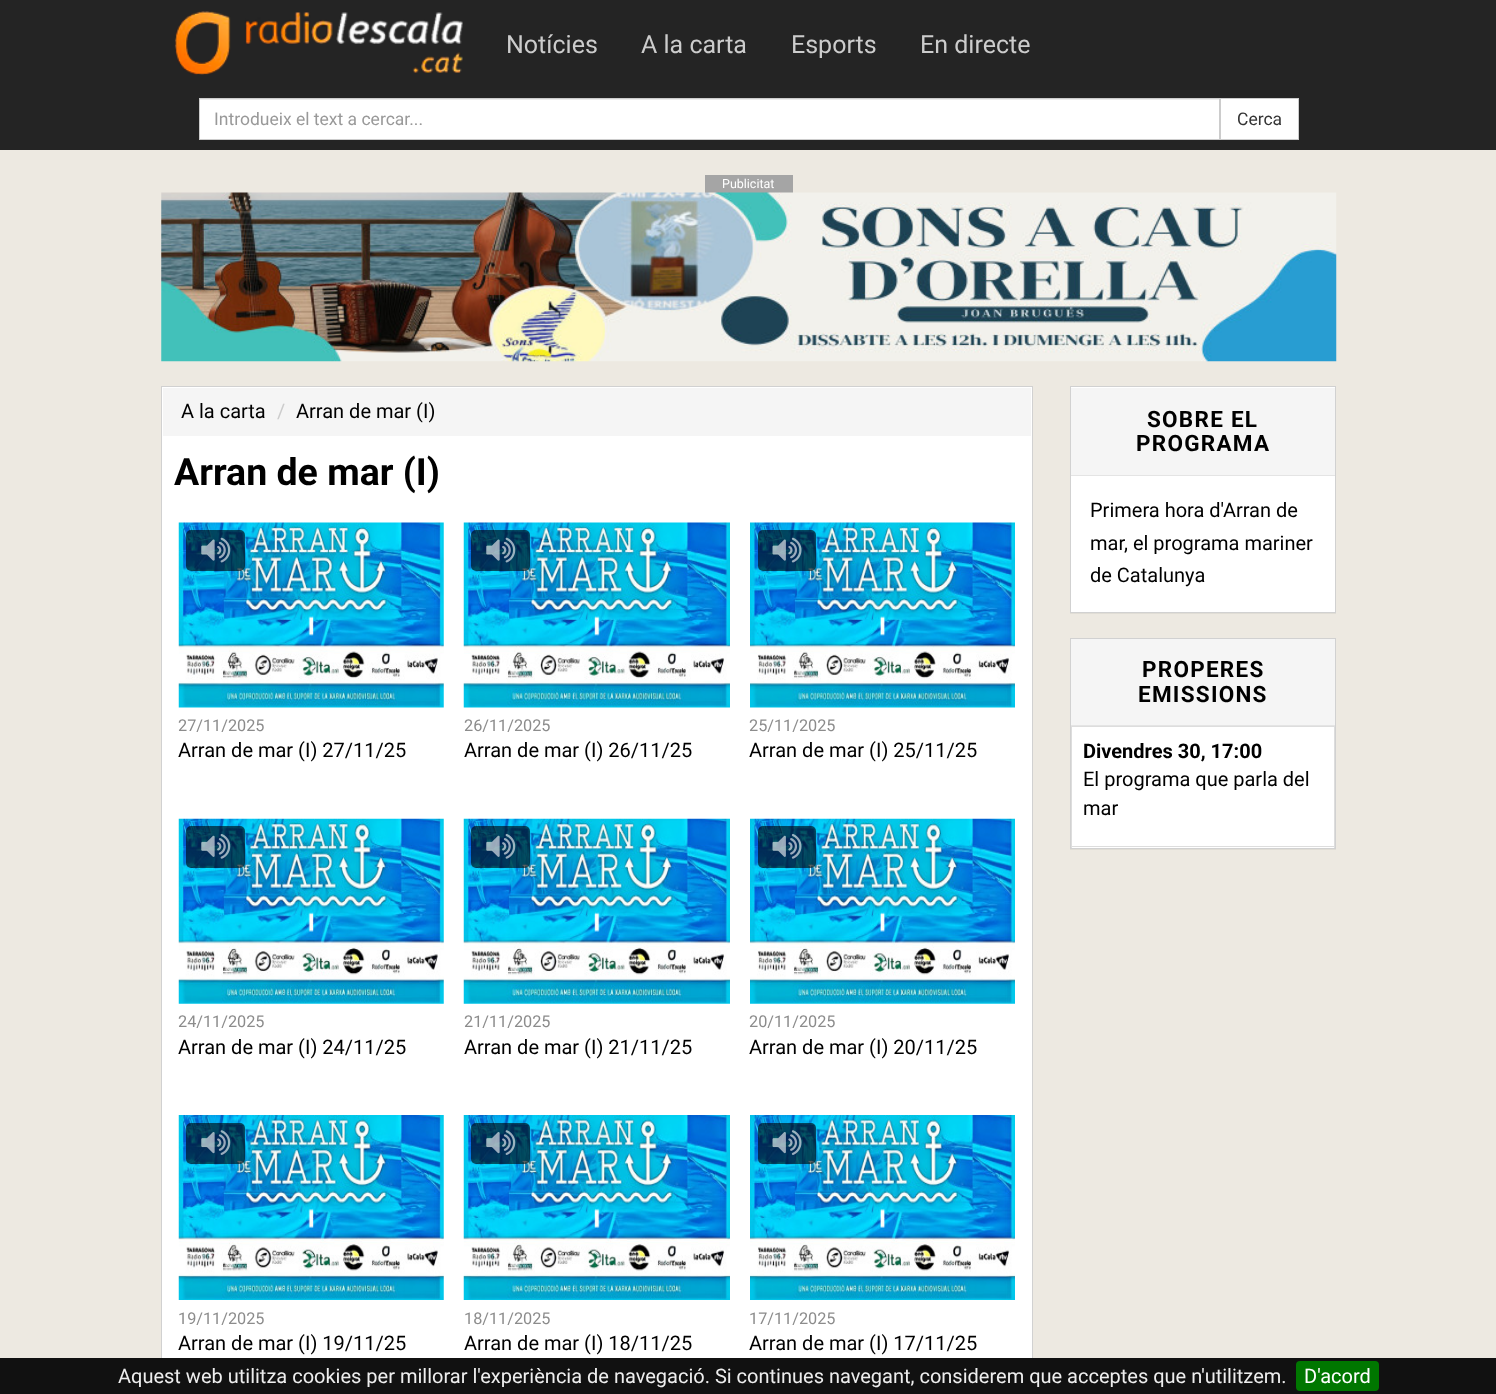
<svg xmlns="http://www.w3.org/2000/svg" width="1496" height="1394" viewBox="0 0 1496 1394">
  <rect width="100%" height="100%" fill="rgb(237,233,225)"/>
  <rect x="0" y="0" width="1496" height="150" fill="rgb(36,36,36)"/>
  <image x="174" y="11" width="289" height="64" href="pic1.png"/>
  <g font-family="Roboto" font-size="25" fill="rgb(204,204,204)">
    <text x="506" y="53">Notícies</text>
    <text x="641" y="53">A la carta</text>
    <text x="791" y="53">Esports</text>
    <text x="920" y="53">En directe</text>
  </g>
  <rect x="200" y="100" width="1019" height="39" fill="rgb(255,255,255)"/>
  <rect x="200" y="99" width="1019" height="1" fill="rgb(236,236,236)"/>
  <rect x="199.5" y="98.5" width="1020" height="41" fill="none" stroke="rgb(204,204,204)"/>
  <text x="214" y="125" font-family="Roboto" font-size="17.5" fill="rgb(153,153,153)">Introdueix el text a cercar...</text>
  <rect x="1220.5" y="98.5" width="78" height="41" fill="rgb(255,255,255)" stroke="rgb(204,204,204)"/>
  <text x="1237" y="125" font-family="Roboto" font-size="17.5" fill="rgb(51,51,51)">Cerca</text>
  <rect x="705" y="175" width="88" height="18" fill="rgb(165,165,165)"/>
  <text x="722" y="188" font-family="Roboto" font-size="12.5" fill="rgb(255,255,255)">Publicitat</text>
  <image x="161" y="192" width="1176" height="170" href="pic2.png"/>
  <rect x="162" y="387" width="870" height="971" fill="rgb(255,255,255)"/>
  <rect x="161.5" y="386.5" width="871" height="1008" fill="none" stroke="rgb(209,209,209)"/>
  <rect x="163" y="388" width="868" height="48" fill="rgb(245,245,245)"/>
  <text x="181" y="418" font-family="Roboto" font-size="20" fill="rgb(0,0,0)">A la carta</text>
  <text x="277" y="418" font-family="Roboto" font-size="20" fill="rgb(204,204,204)">/</text>
  <text x="296" y="418" font-family="Roboto" font-size="20" fill="rgb(0,0,0)">Arran de mar (I)</text>
  <text x="174" y="485" font-family="Roboto" font-size="37.5" font-weight="bold" fill="rgb(0,0,0)">Arran de mar (I)</text>
  <image x="178" y="522" width="266" height="186" href="pic3.png"/>
  <rect x="186" y="530" width="59" height="41" rx="5" fill="rgba(0,0,0,0.6)"/>
  <image x="201" y="537" width="30" height="26" href="pic4.png"/>
  <text x="178" y="731" font-family="Roboto" font-size="16.25" fill="rgb(140,140,140)">27/11/2025</text>
  <text x="178" y="757" font-family="Roboto" font-size="20" fill="rgb(0,0,0)">Arran de mar (I) 27/11/25</text>
  <image x="463" y="522" width="267" height="186" href="pic5.png"/>
  <rect x="471" y="530" width="59" height="41" rx="5" fill="rgba(0,0,0,0.6)"/>
  <image x="486" y="537" width="30" height="26" href="pic6.png"/>
  <text x="464" y="731" font-family="Roboto" font-size="16.25" fill="rgb(140,140,140)">26/11/2025</text>
  <text x="464" y="757" font-family="Roboto" font-size="20" fill="rgb(0,0,0)">Arran de mar (I) 26/11/25</text>
  <image x="750" y="522" width="265" height="186" href="pic7.png"/>
  <rect x="758" y="530" width="58" height="41" rx="5" fill="rgba(0,0,0,0.6)"/>
  <image x="772" y="537" width="30" height="26" href="pic8.png"/>
  <text x="749" y="731" font-family="Roboto" font-size="16.25" fill="rgb(140,140,140)">25/11/2025</text>
  <text x="749" y="757" font-family="Roboto" font-size="20" fill="rgb(0,0,0)">Arran de mar (I) 25/11/25</text>
  <image x="178" y="818" width="266" height="186" href="pic9.png"/>
  <rect x="186" y="826" width="59" height="42" rx="5" fill="rgba(0,0,0,0.6)"/>
  <image x="201" y="834" width="30" height="25" href="pic10.png"/>
  <text x="178" y="1027" font-family="Roboto" font-size="16.25" fill="rgb(140,140,140)">24/11/2025</text>
  <text x="178" y="1054" font-family="Roboto" font-size="20" fill="rgb(0,0,0)">Arran de mar (I) 24/11/25</text>
  <image x="463" y="818" width="267" height="186" href="pic11.png"/>
  <rect x="471" y="826" width="59" height="42" rx="5" fill="rgba(0,0,0,0.6)"/>
  <image x="486" y="834" width="30" height="25" href="pic12.png"/>
  <text x="464" y="1027" font-family="Roboto" font-size="16.25" fill="rgb(140,140,140)">21/11/2025</text>
  <text x="464" y="1054" font-family="Roboto" font-size="20" fill="rgb(0,0,0)">Arran de mar (I) 21/11/25</text>
  <image x="750" y="818" width="265" height="186" href="pic13.png"/>
  <rect x="758" y="826" width="58" height="42" rx="5" fill="rgba(0,0,0,0.6)"/>
  <image x="772" y="834" width="30" height="25" href="pic14.png"/>
  <text x="749" y="1027" font-family="Roboto" font-size="16.25" fill="rgb(140,140,140)">20/11/2025</text>
  <text x="749" y="1054" font-family="Roboto" font-size="20" fill="rgb(0,0,0)">Arran de mar (I) 20/11/25</text>
  <image x="178" y="1115" width="266" height="185" href="pic15.png"/>
  <rect x="186" y="1123" width="59" height="41" rx="5" fill="rgba(0,0,0,0.6)"/>
  <image x="201" y="1130" width="30" height="25" href="pic16.png"/>
  <text x="178" y="1324" font-family="Roboto" font-size="16.25" fill="rgb(140,140,140)">19/11/2025</text>
  <text x="178" y="1350" font-family="Roboto" font-size="20" fill="rgb(0,0,0)">Arran de mar (I) 19/11/25</text>
  <image x="463" y="1115" width="267" height="185" href="pic17.png"/>
  <rect x="471" y="1123" width="59" height="41" rx="5" fill="rgba(0,0,0,0.6)"/>
  <image x="486" y="1130" width="30" height="25" href="pic18.png"/>
  <text x="464" y="1324" font-family="Roboto" font-size="16.25" fill="rgb(140,140,140)">18/11/2025</text>
  <text x="464" y="1350" font-family="Roboto" font-size="20" fill="rgb(0,0,0)">Arran de mar (I) 18/11/25</text>
  <image x="750" y="1115" width="265" height="185" href="pic19.png"/>
  <rect x="758" y="1123" width="58" height="41" rx="5" fill="rgba(0,0,0,0.6)"/>
  <image x="772" y="1130" width="30" height="25" href="pic20.png"/>
  <text x="749" y="1324" font-family="Roboto" font-size="16.25" fill="rgb(140,140,140)">17/11/2025</text>
  <text x="749" y="1350" font-family="Roboto" font-size="20" fill="rgb(0,0,0)">Arran de mar (I) 17/11/25</text>
  <rect x="1070" y="388" width="266" height="226" fill="rgba(0,0,0,0.05)" filter="blur(0.5px)"/>
  <rect x="1070.5" y="386.5" width="265" height="226" fill="rgb(255,255,255)" stroke="rgb(209,209,209)"/>
  <rect x="1071" y="388" width="264" height="87" fill="rgb(245,245,245)"/>
  <rect x="1071" y="475" width="264" height="1" fill="rgb(228,228,228)"/>
  <g font-family="Roboto" font-size="22.5" font-weight="bold" letter-spacing="1.25" fill="rgb(0,0,0)">
    <text x="1147" y="427">SOBRE EL</text>
    <text x="1136" y="451">PROGRAMA</text>
  </g>
  <g font-family="Roboto" font-size="20" fill="rgb(0,0,0)">
    <text>
      <tspan x="1090" y="517">Primera hora d'Arran de</tspan>
      <tspan x="1090" y="550">mar, el programa mariner</tspan>
      <tspan x="1090" y="582">de Catalunya</tspan>
    </text>
  </g>
  <rect x="1070" y="639" width="266" height="211" fill="rgba(0,0,0,0.05)" filter="blur(0.5px)"/>
  <rect x="1072" y="727" width="262" height="121" fill="rgb(255,255,255)"/>
  <rect x="1070.5" y="638.5" width="265" height="210" fill="none" stroke="rgb(209,209,209)"/>
  <rect x="1071" y="639" width="264" height="86" fill="rgb(245,245,245)"/>
  <rect x="1071" y="725" width="264" height="1" fill="rgb(228,228,228)"/>
  <g font-family="Roboto" font-size="22.5" font-weight="bold" letter-spacing="1.25" fill="rgb(0,0,0)">
    <text x="1142" y="677">PROPERES</text>
    <text x="1138" y="702">EMISSIONS</text>
  </g>
  <rect x="1071" y="726" width="264" height="1" fill="rgb(221,221,221)"/>
  <rect x="1334" y="726" width="1" height="122" fill="rgb(221,221,221)"/>
  <rect x="1071" y="846" width="264" height="1" fill="rgb(221,221,221)"/>
  <rect x="1071" y="726" width="1" height="122" fill="rgb(221,221,221)"/>
  <text x="1083" y="758" font-family="Roboto" font-size="20" font-weight="bold" fill="rgb(0,0,0)">Divendres 30, 17:00</text>
  <g font-family="Roboto" font-size="20" fill="rgb(0,0,0)">
    <text>
      <tspan x="1083" y="786">El programa que parla del</tspan>
      <tspan x="1083" y="815">mar</tspan>
    </text>
  </g>
  <rect x="0" y="1358" width="1496" height="36" fill="rgb(17,17,17)"/>
  <text x="118" y="1383" font-family="Roboto" font-size="20" fill="rgb(238,238,238)">Aquest web utilitza cookies per millorar l'experiència de navegació. Si continues navegant, considerem que acceptes que n'utilitzem.</text>
  <rect x="1296" y="1361" width="83" height="30" rx="4" fill="rgb(0,119,0)"/>
  <text x="1304" y="1383" font-family="Roboto" font-size="20" fill="rgb(255,255,255)">D'acord</text>
</svg>
